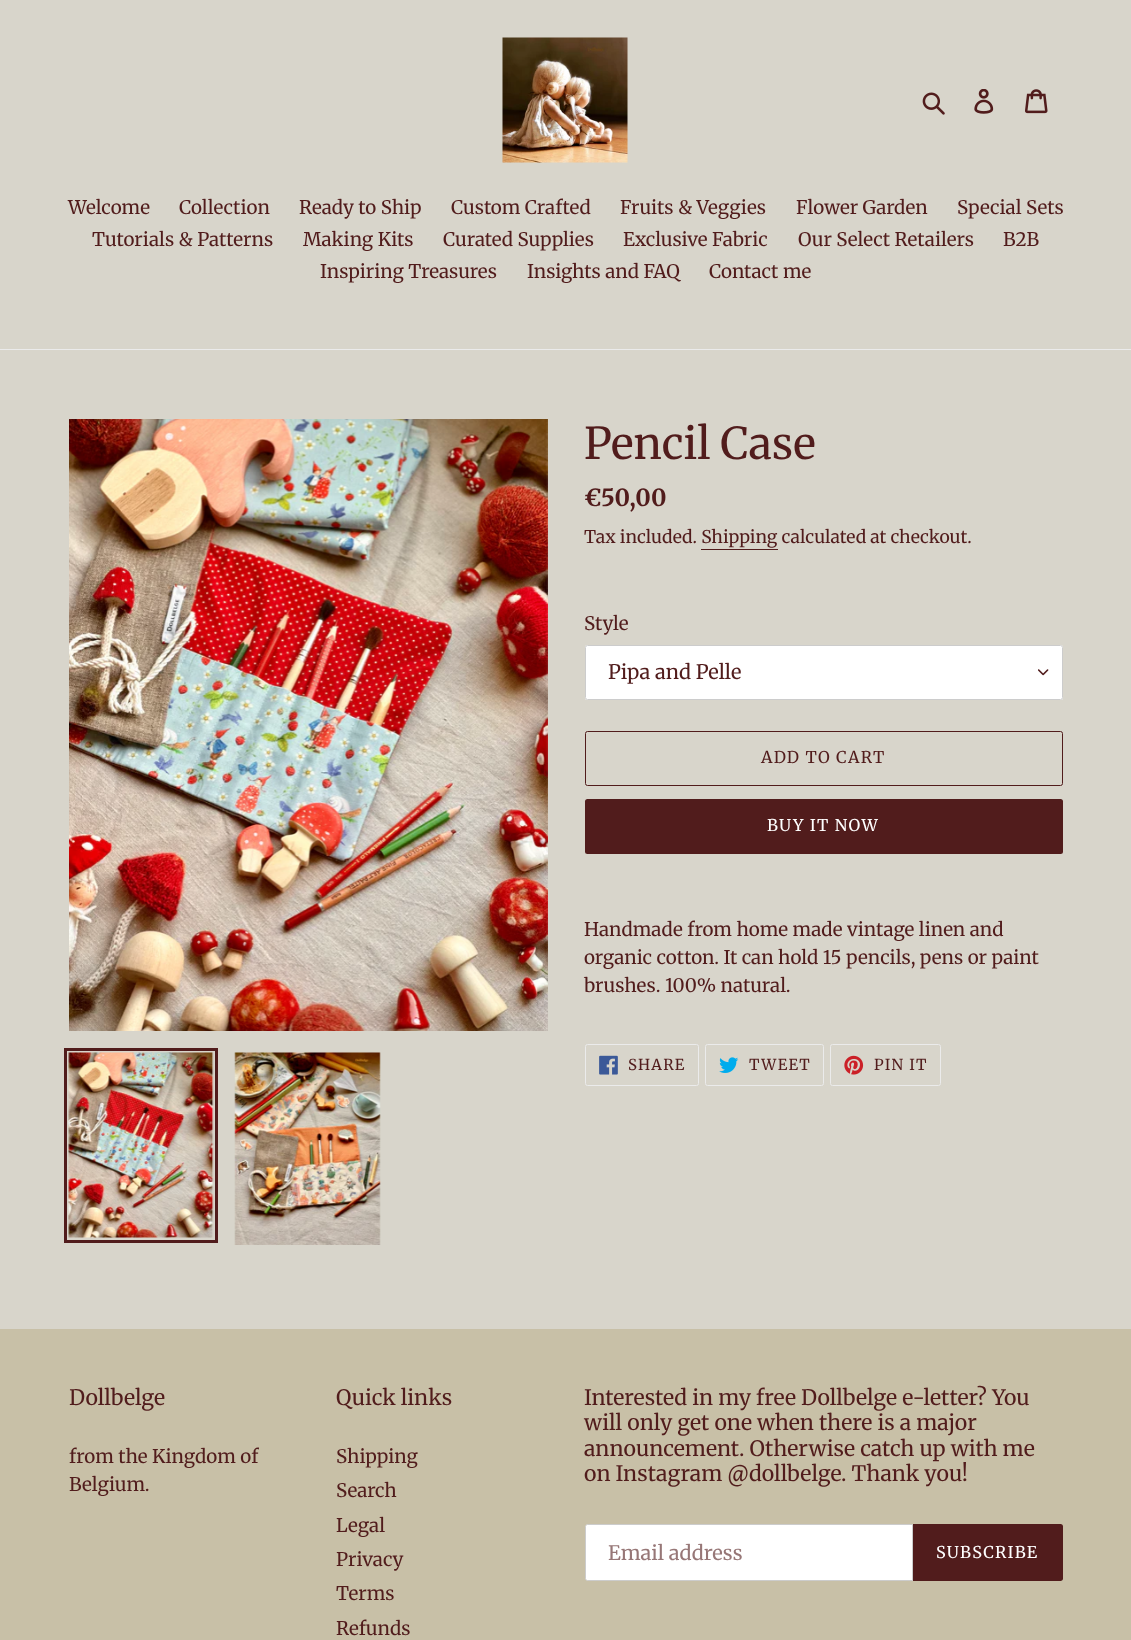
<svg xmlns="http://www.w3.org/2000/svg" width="1131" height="1640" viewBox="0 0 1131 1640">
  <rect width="100%" height="100%" fill="rgb(216,213,203)"/>
  <image x="502" y="37" width="126" height="126" href="pic1.png"/>
  <image x="922" y="92" width="23" height="23" href="pic2.png"/>
  <image x="974" y="89" width="20" height="25" href="pic3.png"/>
  <image x="1025" y="89" width="23" height="25" href="pic4.png"/>
  <rect x="0" y="349" width="1131" height="1" fill="rgb(235,235,235)"/>
  <g font-family="Merriweather" font-size="18.75" fill="rgb(81,28,28)">
    <text x="68" y="214">Welcome</text>
    <text x="179" y="214">Collection</text>
    <text x="299" y="214">Ready to Ship</text>
    <text x="451" y="214">Custom Crafted</text>
    <text x="620" y="214">Fruits &amp; Veggies</text>
    <text x="796" y="214">Flower Garden</text>
    <text x="957" y="214">Special Sets</text>
    <text x="92" y="246">Tutorials &amp; Patterns</text>
    <text x="303" y="246">Making Kits</text>
    <text x="443" y="246">Curated Supplies</text>
    <text x="623" y="246">Exclusive Fabric</text>
    <text x="798" y="246">Our Select Retailers</text>
    <text x="1003" y="246">B2B</text>
    <text x="320" y="278">Inspiring Treasures</text>
    <text x="527" y="278">Insights and FAQ</text>
    <text x="709" y="278">Contact me</text>
  </g>
  <image x="69" y="419" width="479" height="612" href="pic5.png"/>
  <rect x="65.5" y="1049.5" width="151" height="192" fill="none" stroke="rgb(81,28,28)" stroke-width="3"/>
  <image x="68" y="1052" width="146" height="186" href="pic6.png"/>
  <image x="234" y="1052" width="147" height="193" href="pic7.png"/>
  <text x="584" y="459" font-family="'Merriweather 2'" font-size="43.75" fill="rgb(81,28,28)">Pencil Case</text>
  <text x="584" y="506" font-family="Merriweather" font-size="23.5" font-weight="bold" fill="rgb(81,28,28)">€50,00</text>
  <text x="584" y="543" font-family="Merriweather" font-size="17.5" fill="rgb(81,28,28)">Tax included. Shipping calculated at checkout.</text>
  <rect x="701" y="549" width="77" height="1" fill="rgb(81,28,28)"/>
  <text x="584" y="630" font-family="Merriweather" font-size="18.75" fill="rgb(81,28,28)">Style</text>
  <rect x="585" y="645" width="478" height="55" rx="2.5" fill="rgb(255,255,255)"/>
  <image x="1038" y="669" width="11" height="7" href="pic8.png"/>
  <rect x="585.5" y="645.5" width="477" height="54" rx="2" fill="none" stroke="rgb(204,204,204)"/>
  <text x="608" y="679" font-family="Merriweather" font-size="20" fill="rgb(81,28,28)">Pipa and Pelle</text>
  <rect x="585.5" y="731.5" width="477" height="54" rx="2" fill="none" stroke="rgb(81,28,28)"/>
  <text x="761" y="763" font-family="Merriweather" font-size="16.25" letter-spacing="1.25" fill="rgb(81,28,28)">ADD TO CART</text>
  <rect x="585" y="799" width="478" height="55" rx="2.5" fill="rgb(81,28,28)"/>
  <text x="767" y="831" font-family="Merriweather" font-size="16.25" letter-spacing="1.25" fill="rgb(255,255,255)">BUY IT NOW</text>
  <g font-family="Merriweather" font-size="18.75" fill="rgb(81,28,28)">
    <text>
      <tspan x="584" y="936">Handmade from home made vintage linen and</tspan>
      <tspan x="584" y="964">organic cotton. It can hold 15 pencils, pens or paint</tspan>
      <tspan x="584" y="992">brushes. 100% natural.</tspan>
    </text>
  </g>
  <rect x="585.5" y="1044.5" width="113" height="41" rx="2" fill="none" stroke="rgb(235,235,235)"/>
  <image x="599" y="1055" width="19" height="20" href="pic9.png"/>
  <text x="628" y="1070" font-family="Merriweather" font-size="15" letter-spacing="1.25" fill="rgb(81,28,28)">SHARE</text>
  <rect x="705.5" y="1044.5" width="118" height="41" rx="2" fill="none" stroke="rgb(235,235,235)"/>
  <image x="719" y="1057" width="20" height="16" href="pic10.png"/>
  <text x="749" y="1070" font-family="Merriweather" font-size="15" letter-spacing="1.25" fill="rgb(81,28,28)">TWEET</text>
  <rect x="830.5" y="1044.5" width="110" height="41" rx="2" fill="none" stroke="rgb(235,235,235)"/>
  <image x="844" y="1055" width="20" height="20" href="pic11.png"/>
  <text x="874" y="1070" font-family="Merriweather" font-size="15" letter-spacing="1.25" fill="rgb(81,28,28)">PIN IT</text>
  <rect x="0" y="1329" width="1131" height="311" fill="rgb(200,192,167)"/>
  <text x="69" y="1405" font-family="Merriweather" font-size="21.25" fill="rgb(81,28,28)">Dollbelge</text>
  <g font-family="Merriweather" font-size="18.75" fill="rgb(81,28,28)">
    <text>
      <tspan x="69" y="1463">from the Kingdom of</tspan>
      <tspan x="69" y="1491">Belgium.</tspan>
    </text>
  </g>
  <text x="336" y="1405" font-family="Merriweather" font-size="21.25" fill="rgb(81,28,28)">Quick links</text>
  <g font-family="Merriweather" font-size="18.75" fill="rgb(81,28,28)">
    <text>
      <tspan x="336" y="1463">Shipping</tspan>
      <tspan x="336" y="1497">Search</tspan>
      <tspan x="336" y="1532">Legal</tspan>
      <tspan x="336" y="1566">Privacy</tspan>
      <tspan x="336" y="1600">Terms</tspan>
      <tspan x="336" y="1635">Refunds</tspan>
    </text>
  </g>
  <g font-family="Merriweather" font-size="21.25" fill="rgb(81,28,28)">
    <text x="584" y="1405">Interested in my free Dollbelge e-letter?</text>
    <text x="992" y="1405">You</text>
    <text>
      <tspan x="584" y="1430">will only get one when there is a major</tspan>
      <tspan x="584" y="1456">announcement. Otherwise catch up with me</tspan>
      <tspan x="584" y="1481">on Instagram @dollbelge. Thank you!</tspan>
    </text>
  </g>
  <path d="M587.5 1524.5H912.5V1580.5H587.5C586.5 1580.5 585.5 1579.5 585.5 1578.5V1526.5C585.5 1525.5 586.5 1524.5 587.5 1524.5Z" fill="rgb(255,255,255)" stroke="rgb(204,204,204)"/>
  <text x="608" y="1560" font-family="Merriweather" font-size="20" fill="rgb(151,119,119)">Email address</text>
  <path d="M913 1524H1060.5C1062 1524 1063 1525 1063 1526.5V1578.5C1063 1580 1062 1581 1060.5 1581H913Z" fill="rgb(81,28,28)"/>
  <text x="936" y="1558" font-family="Merriweather" font-size="16.25" letter-spacing="1.25" fill="rgb(255,255,255)">SUBSCRIBE</text>
</svg>
